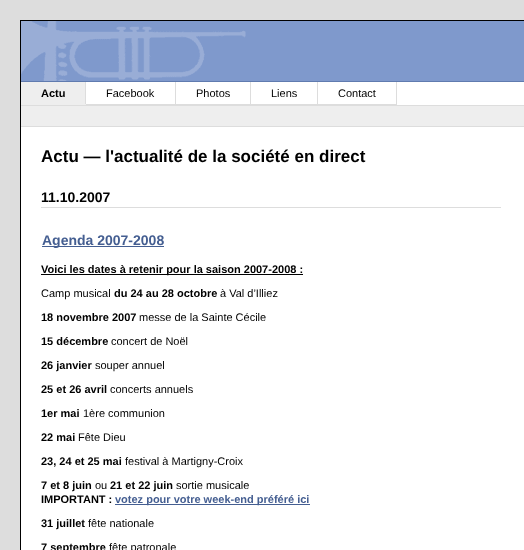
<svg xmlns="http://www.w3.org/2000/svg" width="524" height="550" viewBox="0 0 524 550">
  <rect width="100%" height="100%" fill="rgb(221,221,221)"/>
  <rect x="21" y="82" width="503" height="468" fill="rgb(255,255,255)"/>
  <rect x="20.5" y="20.5" width="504" height="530" fill="none" stroke="rgb(0,0,0)"/>
  <rect x="246" y="21" width="278" height="60" fill="rgb(127,153,204)"/>
  <image x="21" y="21" width="225" height="60" href="pic1.png"/>
  <rect x="21" y="81" width="503" height="1" fill="rgb(96,123,175)"/>
  <rect x="21" y="105" width="503" height="1" fill="rgb(221,221,221)"/>
  <rect x="21" y="82" width="64" height="22" fill="rgb(238,238,238)"/>
  <rect x="85" y="82" width="1" height="23" fill="rgb(221,221,221)"/>
  <rect x="21" y="104" width="65" height="1" fill="rgb(238,238,238)"/>
  <text x="41" y="97" font-family="Liberation Sans" font-size="11" font-weight="bold" fill="rgb(0,0,0)">Actu</text>
  <rect x="175" y="82" width="1" height="23" fill="rgb(221,221,221)"/>
  <rect x="86" y="104" width="90" height="1" fill="rgb(221,221,221)"/>
  <text x="106" y="97" font-family="Liberation Sans" font-size="11" fill="rgb(0,0,0)">Facebook</text>
  <rect x="250" y="82" width="1" height="23" fill="rgb(221,221,221)"/>
  <rect x="176" y="104" width="75" height="1" fill="rgb(221,221,221)"/>
  <text x="196" y="97" font-family="Liberation Sans" font-size="11" fill="rgb(0,0,0)">Photos</text>
  <rect x="317" y="82" width="1" height="23" fill="rgb(221,221,221)"/>
  <rect x="251" y="104" width="67" height="1" fill="rgb(221,221,221)"/>
  <text x="271" y="97" font-family="Liberation Sans" font-size="11" fill="rgb(0,0,0)">Liens</text>
  <rect x="396" y="82" width="1" height="23" fill="rgb(221,221,221)"/>
  <rect x="318" y="104" width="79" height="1" fill="rgb(221,221,221)"/>
  <text x="338" y="97" font-family="Liberation Sans" font-size="11" fill="rgb(0,0,0)">Contact</text>
  <rect x="21" y="106" width="503" height="20" fill="rgb(238,238,238)"/>
  <rect x="21" y="126" width="503" height="1" fill="rgb(221,221,221)"/>
  <text x="41" y="162" font-family="Liberation Sans" font-size="17" font-weight="bold" fill="rgb(0,0,0)">Actu — l'actualité de la société en direct</text>
  <rect x="41" y="207" width="460" height="1" fill="rgb(221,221,221)"/>
  <text x="41" y="202" font-family="Liberation Sans" font-size="14" font-weight="bold" fill="rgb(0,0,0)">11.10.2007</text>
  <rect x="42" y="246" width="122" height="1" fill="rgb(68,94,145)"/>
  <text x="42" y="245" font-family="Liberation Sans" font-size="14" font-weight="bold" fill="rgb(68,94,145)">Agenda 2007-2008</text>
  <rect x="41" y="274" width="262" height="1" fill="rgb(0,0,0)"/>
  <text x="41" y="273" font-family="Liberation Sans" font-size="11" font-weight="bold" fill="rgb(0,0,0)">Voici les dates à retenir pour la saison 2007-2008 :</text>
  <text x="41" y="297" font-family="Liberation Sans" font-size="11" fill="rgb(0,0,0)">Camp musical</text>
  <text x="114" y="297" font-family="Liberation Sans" font-size="11" font-weight="bold" fill="rgb(0,0,0)">du 24 au 28 octobre</text>
  <text x="220" y="297" font-family="Liberation Sans" font-size="11" fill="rgb(0,0,0)">à Val d’Illiez</text>
  <text x="41" y="321" font-family="Liberation Sans" font-size="11" font-weight="bold" fill="rgb(0,0,0)">18 novembre 2007</text>
  <text x="139" y="321" font-family="Liberation Sans" font-size="11" fill="rgb(0,0,0)">messe de la Sainte Cécile</text>
  <text x="41" y="345" font-family="Liberation Sans" font-size="11" font-weight="bold" fill="rgb(0,0,0)">15 décembre</text>
  <text x="111" y="345" font-family="Liberation Sans" font-size="11" fill="rgb(0,0,0)">concert de Noël</text>
  <text x="41" y="369" font-family="Liberation Sans" font-size="11" font-weight="bold" fill="rgb(0,0,0)">26 janvier</text>
  <text x="95" y="369" font-family="Liberation Sans" font-size="11" fill="rgb(0,0,0)">souper annuel</text>
  <text x="41" y="393" font-family="Liberation Sans" font-size="11" font-weight="bold" fill="rgb(0,0,0)">25 et 26 avril</text>
  <text x="110" y="393" font-family="Liberation Sans" font-size="11" fill="rgb(0,0,0)">concerts annuels</text>
  <text x="41" y="417" font-family="Liberation Sans" font-size="11" font-weight="bold" fill="rgb(0,0,0)">1er mai</text>
  <text x="83" y="417" font-family="Liberation Sans" font-size="11" fill="rgb(0,0,0)">1ère communion</text>
  <text x="41" y="441" font-family="Liberation Sans" font-size="11" font-weight="bold" fill="rgb(0,0,0)">22 mai</text>
  <text x="78" y="441" font-family="Liberation Sans" font-size="11" fill="rgb(0,0,0)">Fête Dieu</text>
  <text x="41" y="465" font-family="Liberation Sans" font-size="11" font-weight="bold" fill="rgb(0,0,0)">23, 24 et 25 mai</text>
  <text x="125" y="465" font-family="Liberation Sans" font-size="11" fill="rgb(0,0,0)">festival à Martigny-Croix</text>
  <text x="41" y="489" font-family="Liberation Sans" font-size="11" font-weight="bold" fill="rgb(0,0,0)">7 et 8 juin</text>
  <text x="95" y="489" font-family="Liberation Sans" font-size="11" fill="rgb(0,0,0)">ou</text>
  <text x="110" y="489" font-family="Liberation Sans" font-size="11" font-weight="bold" fill="rgb(0,0,0)">21 et 22 juin</text>
  <text x="176" y="489" font-family="Liberation Sans" font-size="11" fill="rgb(0,0,0)">sortie musicale</text>
  <text x="41" y="503" font-family="Liberation Sans" font-size="11" font-weight="bold" fill="rgb(0,0,0)">IMPORTANT :</text>
  <rect x="115" y="504" width="195" height="1" fill="rgb(68,94,145)"/>
  <text x="115" y="503" font-family="Liberation Sans" font-size="11" font-weight="bold" fill="rgb(68,94,145)">votez pour votre week-end préféré ici</text>
  <text x="41" y="527" font-family="Liberation Sans" font-size="11" font-weight="bold" fill="rgb(0,0,0)">31 juillet</text>
  <text x="88" y="527" font-family="Liberation Sans" font-size="11" fill="rgb(0,0,0)">fête nationale</text>
  <text x="41" y="551" font-family="Liberation Sans" font-size="11" font-weight="bold" fill="rgb(0,0,0)">7 septembre</text>
  <text x="109" y="551" font-family="Liberation Sans" font-size="11" fill="rgb(0,0,0)">fête patronale</text>
</svg>
